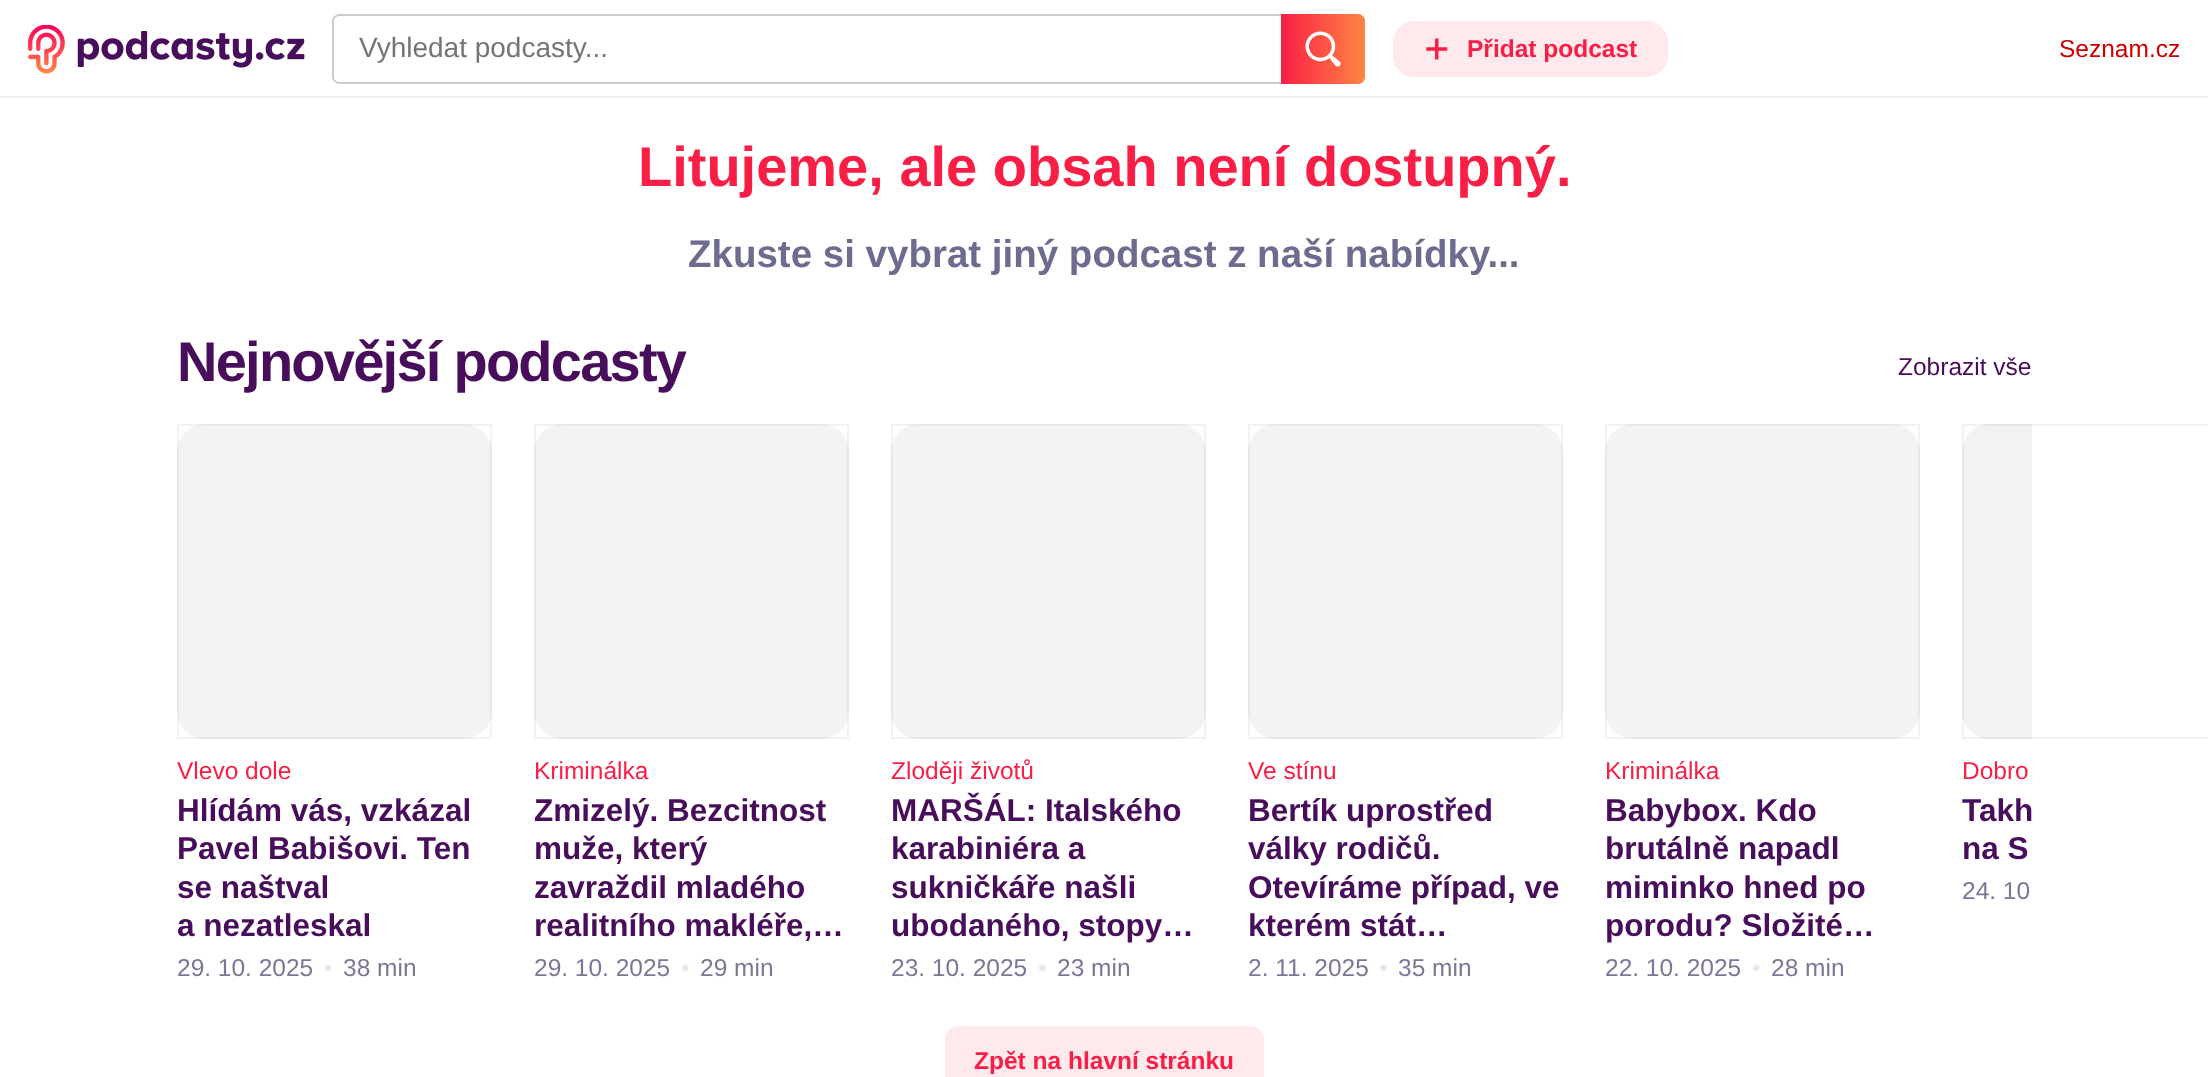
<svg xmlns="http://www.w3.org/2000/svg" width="2208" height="1077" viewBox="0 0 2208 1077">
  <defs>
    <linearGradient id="g1" gradientUnits="userSpaceOnUse" x1="1281" y1="49" x2="1365" y2="49"><stop offset="0" stop-color="rgb(248,30,69)"/><stop offset="1" stop-color="rgb(255,134,68)"/></linearGradient>
  </defs>
  <rect width="100%" height="100%" fill="rgb(255,255,255)"/>
  <rect x="0" y="96" width="2208" height="2" fill="rgb(240,240,244)"/>
  <image x="28" y="25" width="277" height="49" href="pic1.png"/>
  <path d="M340 14H1281V84H340C336 84 332 81 332 77V21C332 17 336 14 340 14ZM340 16H1281V82H340C337 82 334 80 334 77V21C334 18 337 16 340 16Z" fill="rgb(204,204,204)" fill-rule="evenodd"/>
  <text x="359" y="57" font-family="Liberation Sans" font-size="28" fill="rgb(117,117,117)">Vyhledat podcasty...</text>
  <path d="M1281 14H1358C1362 14 1365 17 1365 21V77C1365 81 1362 84 1358 84H1281Z" fill="url(#g1)"/>
  <image x="1305" y="31" width="36" height="36" href="pic2.png"/>
  <rect x="1393" y="21" width="275" height="56" rx="21" fill="rgb(254,233,236)"/>
  <image x="1426" y="38" width="22" height="22" href="pic3.png"/>
  <text x="1467" y="57" font-family="Liberation Sans" font-size="24.5" font-weight="bold" fill="rgb(248,30,69)">Přidat podcast</text>
  <text x="2059" y="57" font-family="Liberation Sans" font-size="24.5" fill="rgb(204,0,0)">Seznam.cz</text>
  <text x="638" y="186" font-family="Liberation Sans" font-size="56" font-weight="bold" fill="rgb(248,30,69)">Litujeme, ale obsah není dostupný.</text>
  <text x="688" y="267" font-family="Liberation Sans" font-size="38.5" font-weight="bold" fill="rgb(109,108,142)">Zkuste si vybrat jiný podcast z naší nabídky...</text>
  <text x="177" y="381" font-family="Liberation Sans" font-size="56" font-weight="bold" letter-spacing="-1.75" fill="rgb(73,14,91)">Nejnovější podcasty</text>
  <text x="1898" y="375" font-family="Liberation Sans" font-size="24.5" fill="rgb(73,14,91)">Zobrazit vše</text>
  <rect x="177" y="424" width="315" height="315" rx="28" fill="rgb(243,243,243)"/>
  <rect x="178" y="425" width="313" height="313" fill="none" stroke="rgba(0,0,0,0.05)" stroke-width="2"/>
  <text x="177" y="779" font-family="Liberation Sans" font-size="24.5" fill="rgb(248,30,69)">Vlevo dole</text>
  <g font-family="Liberation Sans" font-size="31.5" font-weight="bold" fill="rgb(73,14,91)">
    <text>
      <tspan x="177" y="821">Hlídám vás, vzkázal</tspan>
      <tspan x="177" y="859">Pavel Babišovi. Ten</tspan>
      <tspan x="177" y="898">se naštval</tspan>
      <tspan x="177" y="936">a nezatleskal</tspan>
    </text>
  </g>
  <text x="177" y="976" font-family="Liberation Sans" font-size="24.5" fill="rgb(121,120,151)">29. 10. 2025</text>
  <text x="324" y="976" font-family="Liberation Sans" font-size="24.5" fill="rgb(231,231,236)">•</text>
  <text x="343" y="976" font-family="Liberation Sans" font-size="24.5" fill="rgb(121,120,151)">38 min</text>
  <rect x="534" y="424" width="315" height="315" rx="28" fill="rgb(243,243,243)"/>
  <rect x="535" y="425" width="313" height="313" fill="none" stroke="rgba(0,0,0,0.05)" stroke-width="2"/>
  <text x="534" y="779" font-family="Liberation Sans" font-size="24.5" fill="rgb(248,30,69)">Kriminálka</text>
  <g font-family="Liberation Sans" font-size="31.5" font-weight="bold" fill="rgb(73,14,91)">
    <text>
      <tspan x="534" y="821">Zmizelý. Bezcitnost</tspan>
      <tspan x="534" y="859">muže, který</tspan>
      <tspan x="534" y="898">zavraždil mladého</tspan>
      <tspan x="534" y="936">realitního makléře,…</tspan>
    </text>
  </g>
  <text x="534" y="976" font-family="Liberation Sans" font-size="24.5" fill="rgb(121,120,151)">29. 10. 2025</text>
  <text x="681" y="976" font-family="Liberation Sans" font-size="24.5" fill="rgb(231,231,236)">•</text>
  <text x="700" y="976" font-family="Liberation Sans" font-size="24.5" fill="rgb(121,120,151)">29 min</text>
  <rect x="891" y="424" width="315" height="315" rx="28" fill="rgb(243,243,243)"/>
  <rect x="892" y="425" width="313" height="313" fill="none" stroke="rgba(0,0,0,0.05)" stroke-width="2"/>
  <text x="891" y="779" font-family="Liberation Sans" font-size="24.5" fill="rgb(248,30,69)">Zloději životů</text>
  <g font-family="Liberation Sans" font-size="31.5" font-weight="bold" fill="rgb(73,14,91)">
    <text>
      <tspan x="891" y="821">MARŠÁL: Italského</tspan>
      <tspan x="891" y="859">karabiniéra a</tspan>
      <tspan x="891" y="898">sukničkáře našli</tspan>
      <tspan x="891" y="936">ubodaného, stopy…</tspan>
    </text>
  </g>
  <text x="891" y="976" font-family="Liberation Sans" font-size="24.5" fill="rgb(121,120,151)">23. 10. 2025</text>
  <text x="1038" y="976" font-family="Liberation Sans" font-size="24.5" fill="rgb(231,231,236)">•</text>
  <text x="1057" y="976" font-family="Liberation Sans" font-size="24.5" fill="rgb(121,120,151)">23 min</text>
  <rect x="1248" y="424" width="315" height="315" rx="28" fill="rgb(243,243,243)"/>
  <rect x="1249" y="425" width="313" height="313" fill="none" stroke="rgba(0,0,0,0.05)" stroke-width="2"/>
  <text x="1248" y="779" font-family="Liberation Sans" font-size="24.5" fill="rgb(248,30,69)">Ve stínu</text>
  <g font-family="Liberation Sans" font-size="31.5" font-weight="bold" fill="rgb(73,14,91)">
    <text>
      <tspan x="1248" y="821">Bertík uprostřed</tspan>
      <tspan x="1248" y="859">války rodičů.</tspan>
      <tspan x="1248" y="898">Otevíráme případ, ve</tspan>
      <tspan x="1248" y="936">kterém stát…</tspan>
    </text>
  </g>
  <text x="1248" y="976" font-family="Liberation Sans" font-size="24.5" fill="rgb(121,120,151)">2. 11. 2025</text>
  <text x="1379" y="976" font-family="Liberation Sans" font-size="24.5" fill="rgb(231,231,236)">•</text>
  <text x="1398" y="976" font-family="Liberation Sans" font-size="24.5" fill="rgb(121,120,151)">35 min</text>
  <rect x="1605" y="424" width="315" height="315" rx="28" fill="rgb(243,243,243)"/>
  <rect x="1606" y="425" width="313" height="313" fill="none" stroke="rgba(0,0,0,0.05)" stroke-width="2"/>
  <text x="1605" y="779" font-family="Liberation Sans" font-size="24.5" fill="rgb(248,30,69)">Kriminálka</text>
  <g font-family="Liberation Sans" font-size="31.5" font-weight="bold" fill="rgb(73,14,91)">
    <text>
      <tspan x="1605" y="821">Babybox. Kdo</tspan>
      <tspan x="1605" y="859">brutálně napadl</tspan>
      <tspan x="1605" y="898">miminko hned po</tspan>
      <tspan x="1605" y="936">porodu? Složité…</tspan>
    </text>
  </g>
  <text x="1605" y="976" font-family="Liberation Sans" font-size="24.5" fill="rgb(121,120,151)">22. 10. 2025</text>
  <text x="1752" y="976" font-family="Liberation Sans" font-size="24.5" fill="rgb(231,231,236)">•</text>
  <text x="1771" y="976" font-family="Liberation Sans" font-size="24.5" fill="rgb(121,120,151)">28 min</text>
  <path d="M1990 424H2032V739H1990C1974.5 739 1962 726.5 1962 711V452C1962 436.5 1974.5 424 1990 424Z" fill="rgb(242,242,242)"/>
  <rect x="1963" y="425" width="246" height="313" fill="none" stroke="rgba(0,0,0,0.05)" stroke-width="2"/>
  <text x="1962" y="779" font-family="Liberation Sans" font-size="24.5" fill="rgb(248,30,69)">Dobro</text>
  <g font-family="Liberation Sans" font-size="31.5" font-weight="bold" fill="rgb(73,14,91)">
    <text>
      <tspan x="1962" y="821">Takh</tspan>
      <tspan x="1962" y="859">na S</tspan>
    </text>
  </g>
  <text x="1962" y="899" font-family="Liberation Sans" font-size="24.5" fill="rgb(121,120,151)">24. 10</text>
  <rect x="945" y="1026" width="319" height="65" rx="14" fill="rgb(254,233,236)"/>
  <text x="974" y="1069" font-family="Liberation Sans" font-size="24.5" font-weight="bold" fill="rgb(248,30,69)">Zpět na hlavní stránku</text>
</svg>
